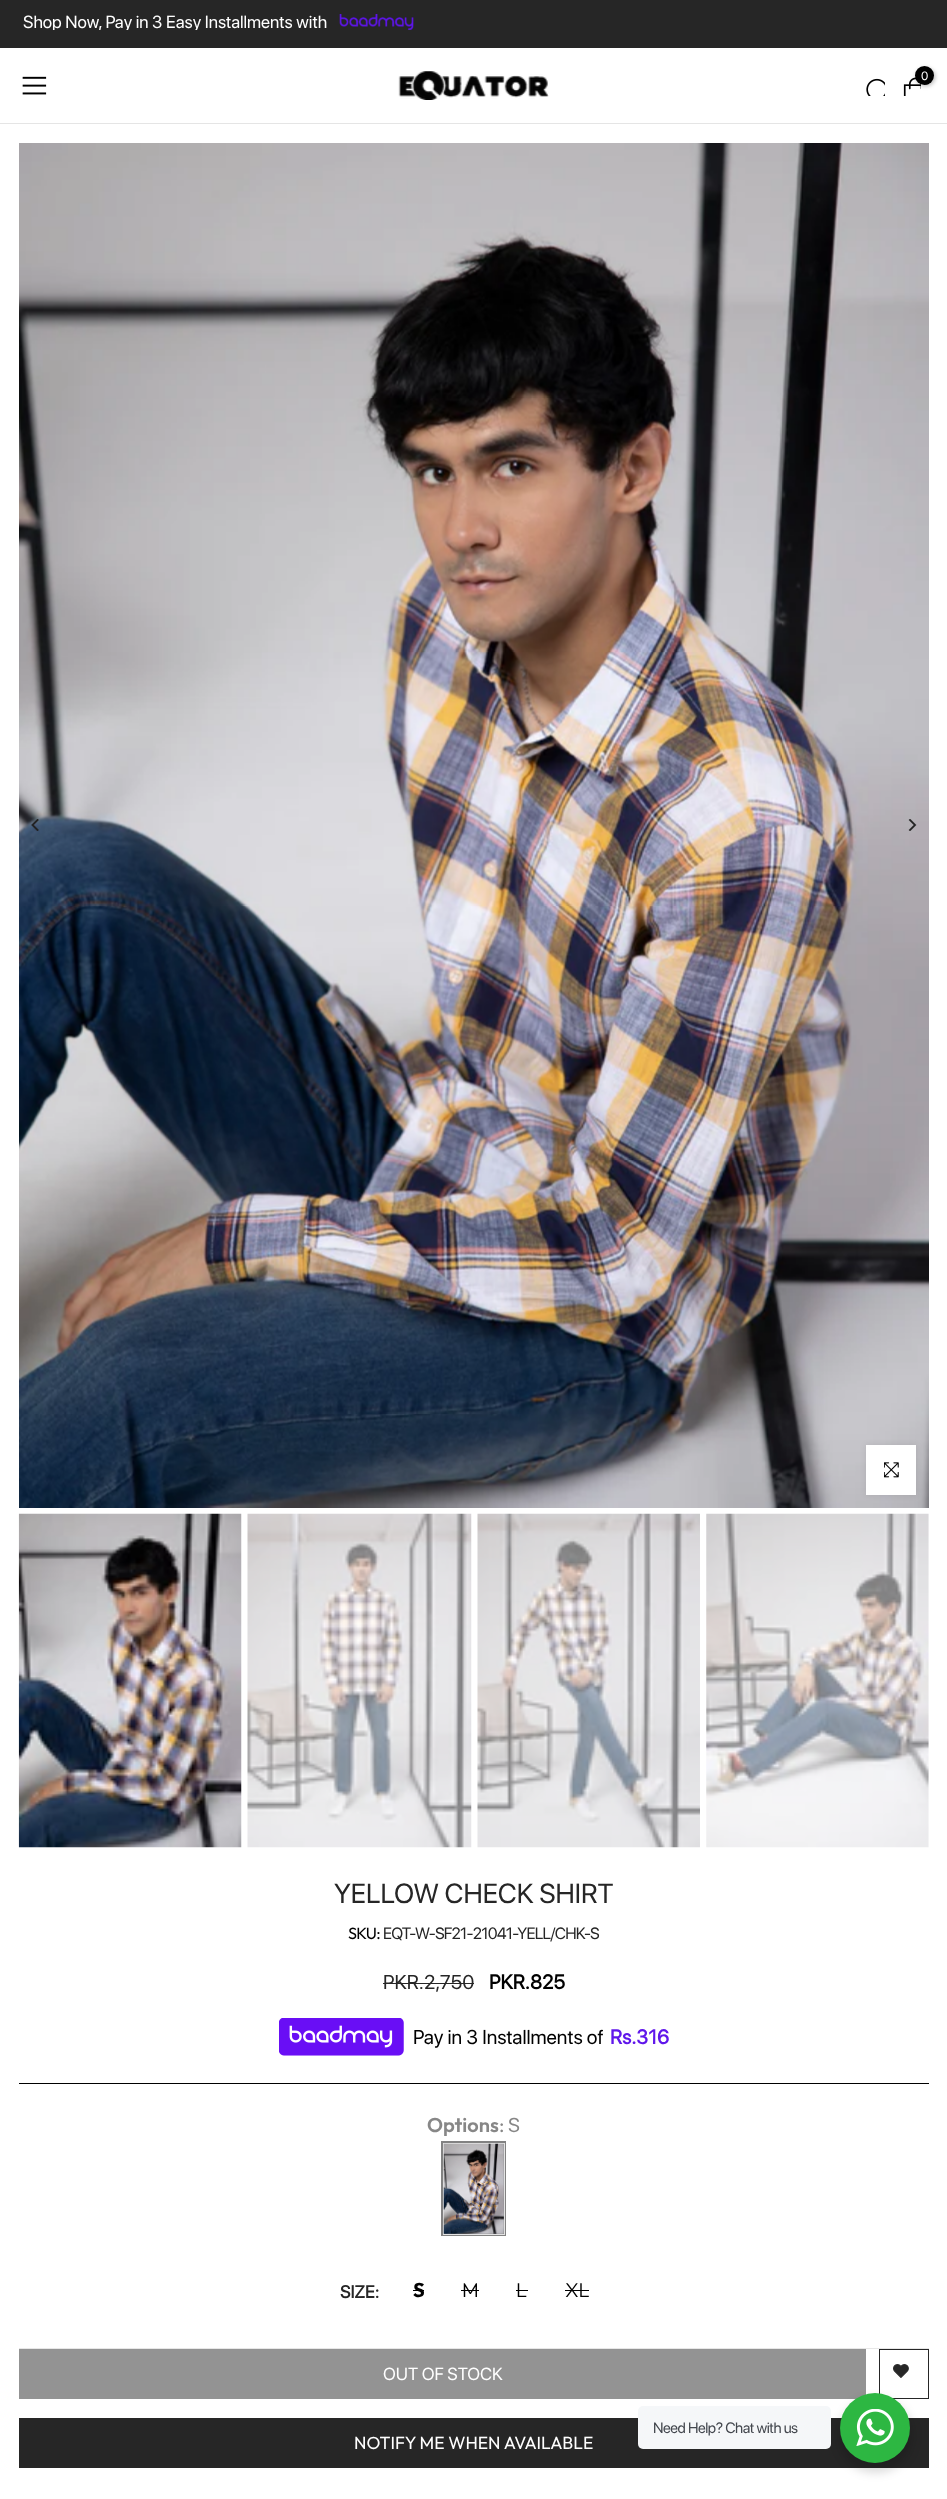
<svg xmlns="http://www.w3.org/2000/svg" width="947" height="2499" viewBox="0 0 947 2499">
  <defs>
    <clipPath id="clip1"><rect x="19" y="8" width="910" height="22"/></clipPath>
  </defs>
  <rect width="100%" height="100%" fill="rgb(255,255,255)"/>
  <rect x="0" y="0" width="947" height="48" fill="rgb(38,38,38)"/>
  <g clip-path="url(#clip1)">
    <text x="23" y="28" font-family="SF Pro Display" font-size="17.5" fill="rgb(255,255,255)">Shop Now, Pay in 3 Easy Installments with</text>
  </g>
  <image x="339" y="14" width="75" height="16" href="pic1.png"/>
  <rect x="0" y="123" width="947" height="1" fill="rgb(229,229,229)"/>
  <image x="22" y="76" width="25" height="19" href="pic2.png"/>
  <image x="398" y="71" width="151" height="29" href="pic3.png"/>
  <image x="903" y="77" width="18" height="19" href="pic4.png"/>
  <rect x="916" y="68" width="19" height="18" rx="9" fill="rgba(0,0,0,0.3)" filter="blur(2px)"/>
  <circle cx="924.5" cy="75.5" r="9.5" fill="rgb(0,0,0)"/>
  <text x="921" y="80" font-family="SF Pro Display" font-size="12" fill="rgb(255,255,255)">0</text>
  <image x="866" y="78" width="19" height="18" href="pic5.png"/>
  <image x="19" y="143" width="910" height="1365" href="pic6.png"/>
  <image x="31" y="819" width="8" height="12" href="pic7.png"/>
  <image x="908" y="819" width="9" height="12" href="pic8.png"/>
  <rect x="866" y="1445" width="50" height="50" fill="rgba(0,0,0,0.09)" filter="blur(3px)"/>
  <rect x="866" y="1445" width="50" height="50" fill="rgb(255,255,255)"/>
  <image x="884" y="1462" width="15" height="16" href="pic9.png"/>
  <image x="18" y="1513" width="224" height="335" href="pic10.png"/>
  <image x="247" y="1513" width="225" height="335" href="pic11.png"/>
  <image x="477" y="1513" width="223" height="335" href="pic12.png"/>
  <image x="706" y="1513" width="223" height="335" href="pic13.png"/>
  <text x="334" y="1903" font-family="SF Pro Display" font-size="27.5" fill="rgb(38,38,38)">YELLOW CHECK SHIRT</text>
  <text x="348" y="1939" font-family="Outfit" font-size="16.25" letter-spacing="-0.75" fill="rgb(0,0,0)">SKU:</text>
  <text x="383" y="1939" font-family="SF Pro Display" font-size="16.25" letter-spacing="-0.75" fill="rgb(38,38,38)">EQT-W-SF21-21041-YELL/CHK-S</text>
  <text x="383" y="1989" font-family="SF Pro Display" font-size="20" fill="rgb(38,38,38)">PKR.2,750</text>
  <rect x="383" y="1983" width="91" height="1" fill="rgb(38,38,38)"/>
  <text x="489" y="1989" font-family="SF Pro Display" font-size="20" font-weight="bold" fill="rgb(0,0,0)">PKR.825</text>
  <rect x="19" y="2083" width="910" height="1" fill="rgb(0,0,0)"/>
  <image x="279" y="2018" width="125" height="38" href="pic14.png"/>
  <text x="413" y="2044" font-family="SF Pro Display" font-size="20" fill="rgb(0,0,0)">Pay in 3 Installments of</text>
  <text x="610" y="2044" font-family="SF Pro Display" font-size="20" font-weight="bold" fill="rgb(96,22,235)">Rs.316</text>
  <text x="427" y="2132" font-family="Outfit" font-size="20" font-weight="600" fill="rgb(135,135,135)">Options</text>
  <text x="499" y="2132" font-family="Outfit" font-size="20" fill="rgb(135,135,135)">:</text>
  <text x="508" y="2132" font-family="SF Pro Display" font-size="20" fill="rgb(135,135,135)">S</text>
  <rect x="441" y="2141" width="65" height="95" fill="rgba(0,0,0,0.49)" filter="blur(0.5px)"/>
  <rect x="443.5" y="2143.5" width="61" height="91" fill="none" stroke="rgb(227,227,227)"/>
  <image x="443" y="2143" width="61" height="91" href="pic15.png"/>
  <rect x="19" y="2348" width="910" height="1" fill="rgb(230,230,230)"/>
  <text x="340" y="2298" font-family="SF Pro Display" font-size="17.5" font-weight="bold" fill="rgb(38,38,38)">SIZE:</text>
  <text x="413" y="2297" font-family="Outfit" font-size="20" font-weight="bold" fill="rgb(0,0,0)">S</text>
  <rect x="413" y="2290" width="11" height="1" fill="rgb(0,0,0)"/>
  <text x="462" y="2297" font-family="Outfit" font-size="20" font-weight="300" fill="rgb(0,0,0)">M</text>
  <rect x="461" y="2290" width="18" height="1" fill="rgb(0,0,0)"/>
  <text x="516" y="2297" font-family="Outfit" font-size="20" font-weight="300" fill="rgb(0,0,0)">L</text>
  <rect x="516" y="2290" width="12" height="1" fill="rgb(0,0,0)"/>
  <text x="565" y="2297" font-family="Outfit" font-size="20" font-weight="300" fill="rgb(0,0,0)">XL</text>
  <rect x="565" y="2290" width="24" height="1" fill="rgb(0,0,0)"/>
  <rect x="19" y="2349" width="847" height="50" fill="rgb(147,147,147)"/>
  <text x="383" y="2380" font-family="SF Pro Display" font-size="17.5" fill="rgb(255,255,255)">OUT OF STOCK</text>
  <rect x="879.5" y="2349.5" width="49" height="49" fill="none" stroke="rgb(38,38,38)"/>
  <image x="893" y="2364" width="16" height="14" href="pic16.png"/>
  <rect x="19" y="2418" width="910" height="50" fill="rgb(38,38,38)"/>
  <text x="354" y="2449" font-family="Outfit" font-size="17.5" fill="rgb(255,255,255)">NOTIFY ME WHEN AVAILABLE</text>
  <rect x="838" y="2398" width="75" height="75" rx="37.5" fill="rgba(0,0,0,0.14)" filter="blur(5px)"/>
  <rect x="638" y="2406" width="193" height="43" rx="5" fill="rgb(245,247,249)"/>
  <text x="653" y="2433" font-family="SF Pro Display" font-size="15" letter-spacing="-0.45" fill="rgb(67,71,78)">Need Help? Chat with us</text>
  <circle cx="875" cy="2428" r="35" fill="rgb(45,183,66)"/>
  <image x="856" y="2409" width="38" height="37" href="pic17.png"/>
</svg>
